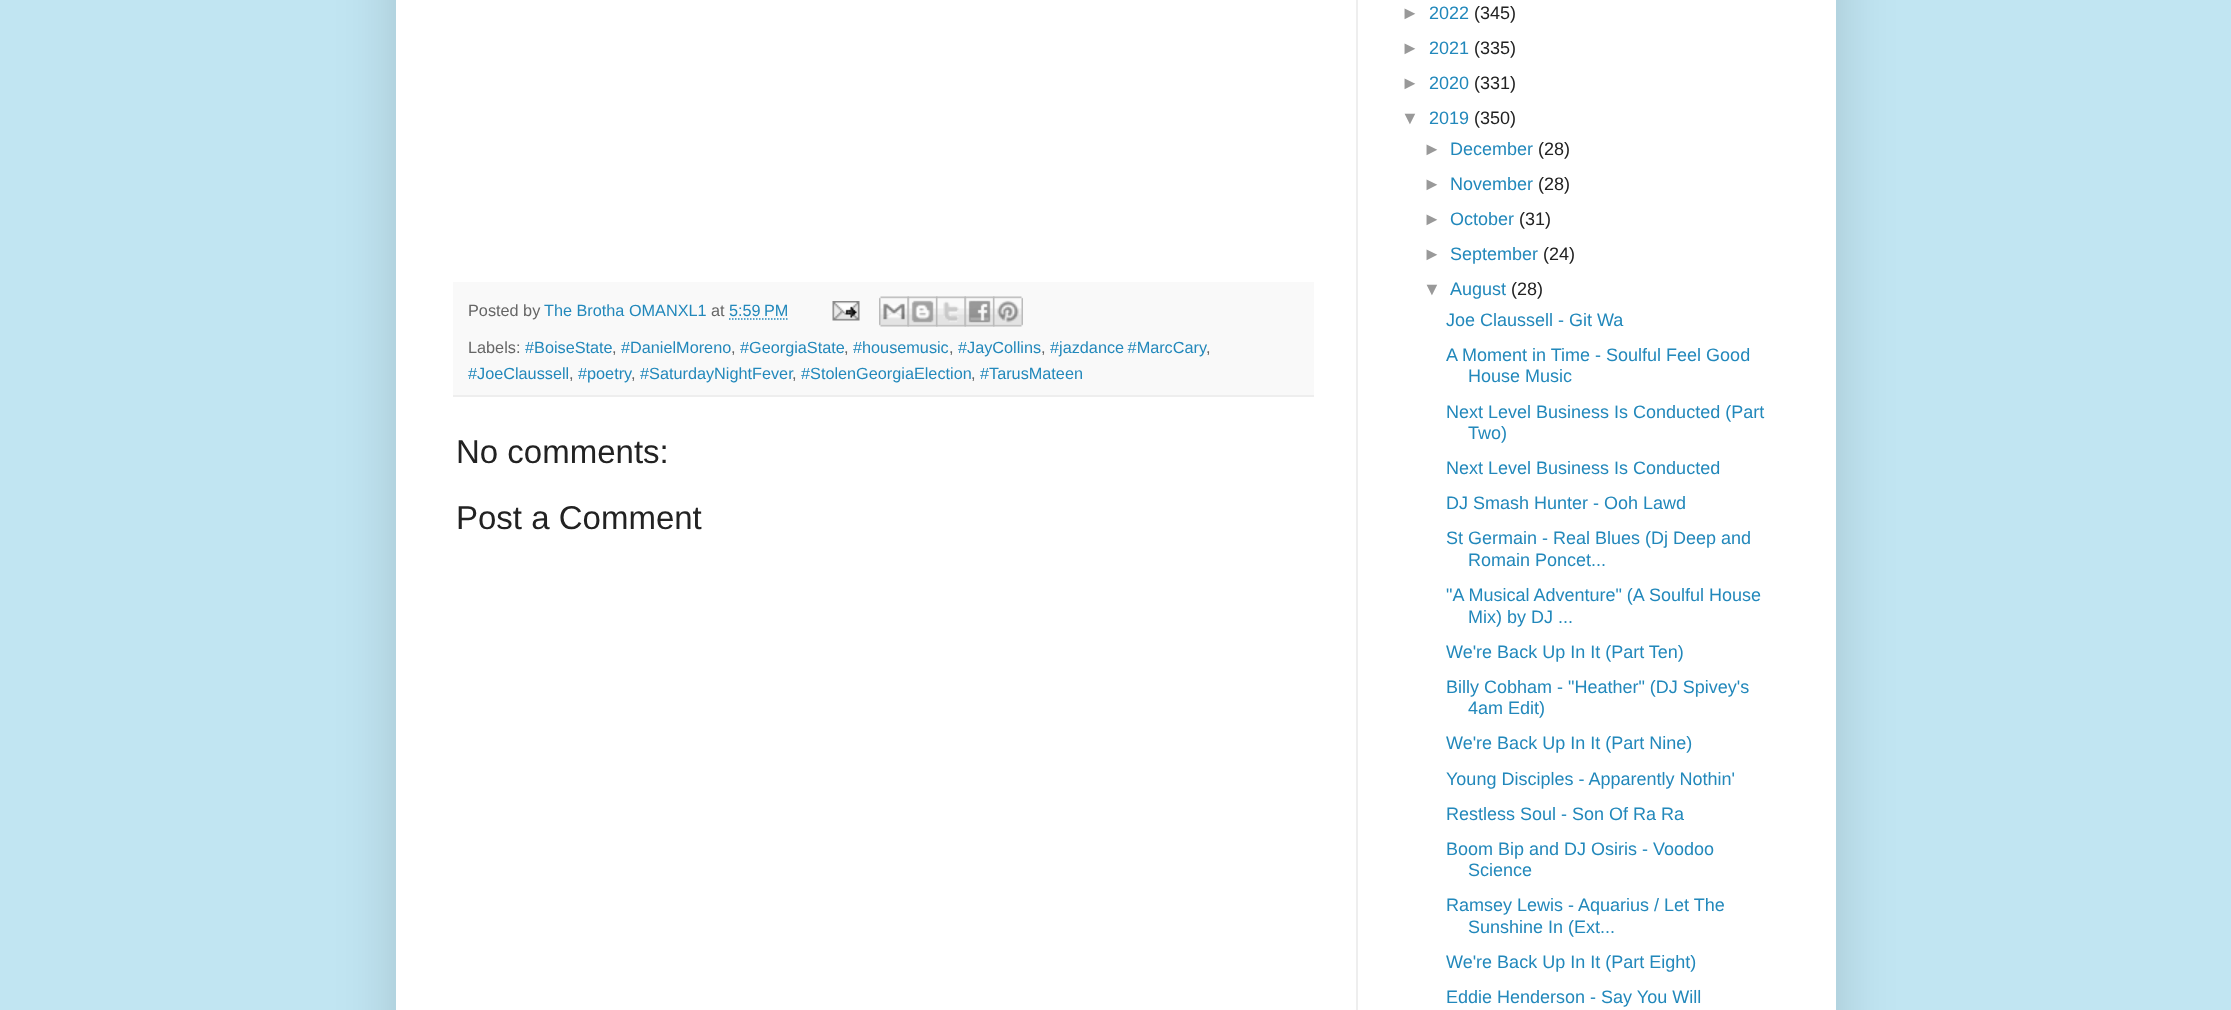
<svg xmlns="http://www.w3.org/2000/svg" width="2231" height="1010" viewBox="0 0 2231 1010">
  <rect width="100%" height="100%" fill="rgb(193,229,242)"/>
  <rect x="396" y="-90" width="1440" height="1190" fill="rgba(0,0,0,0.15)" filter="blur(30px)"/>
  <rect x="396" y="0" width="1440" height="1010" fill="rgb(255,255,255)"/>
  <rect x="1356" y="0" width="2" height="1010" fill="rgb(238,238,238)"/>
  <rect x="453" y="282" width="861" height="113" fill="rgb(249,249,249)"/>
  <rect x="453" y="395" width="861" height="2" fill="rgb(238,238,238)"/>
  <text x="468" y="316" font-family="Liberation Sans" font-size="16.25" fill="rgb(102,102,102)">Posted by</text>
  <text x="544" y="316" font-family="Liberation Sans" font-size="16.25" fill="rgb(34,136,187)">The Brotha OMANXL1</text>
  <text x="711" y="316" font-family="Liberation Sans" font-size="16.25" fill="rgb(102,102,102)">at</text>
  <text x="729" y="316" font-family="Liberation Sans" font-size="16.25" fill="rgb(34,136,187)">5:59 PM</text>
  <path d="M729 319H788" fill="none" stroke="rgb(34,136,187)" stroke-width="1.5" stroke-dasharray="1.5 1.5"/>
  <image x="832" y="301" width="28" height="20" href="pic1.png"/>
  <image x="879" y="296" width="30" height="31" href="pic2.png"/>
  <image x="907" y="296" width="31" height="31" href="pic3.png"/>
  <image x="936" y="296" width="30" height="31" href="pic4.png"/>
  <image x="964" y="296" width="31" height="31" href="pic5.png"/>
  <image x="993" y="296" width="30" height="31" href="pic6.png"/>
  <text x="468" y="353" font-family="Liberation Sans" font-size="16.25" fill="rgb(102,102,102)">Labels:</text>
  <text x="525" y="353" font-family="Liberation Sans" font-size="16.25" fill="rgb(34,136,187)">#BoiseState</text>
  <text x="612" y="353" font-family="Liberation Sans" font-size="16.25" fill="rgb(102,102,102)">,</text>
  <text x="621" y="353" font-family="Liberation Sans" font-size="16.25" fill="rgb(34,136,187)">#DanielMoreno</text>
  <text x="731" y="353" font-family="Liberation Sans" font-size="16.25" fill="rgb(102,102,102)">,</text>
  <text x="740" y="353" font-family="Liberation Sans" font-size="16.25" fill="rgb(34,136,187)">#GeorgiaState</text>
  <text x="844" y="353" font-family="Liberation Sans" font-size="16.25" fill="rgb(102,102,102)">,</text>
  <text x="853" y="353" font-family="Liberation Sans" font-size="16.25" fill="rgb(34,136,187)">#housemusic</text>
  <text x="949" y="353" font-family="Liberation Sans" font-size="16.25" fill="rgb(102,102,102)">,</text>
  <text x="958" y="353" font-family="Liberation Sans" font-size="16.25" fill="rgb(34,136,187)">#JayCollins</text>
  <text x="1041" y="353" font-family="Liberation Sans" font-size="16.25" fill="rgb(102,102,102)">,</text>
  <text x="1050" y="353" word-spacing="-1" font-family="Liberation Sans" font-size="16.25" fill="rgb(34,136,187)">#jazdance #MarcCary</text>
  <text x="1206" y="353" font-family="Liberation Sans" font-size="16.25" fill="rgb(102,102,102)">,</text>
  <text x="468" y="379" font-family="Liberation Sans" font-size="16.25" fill="rgb(34,136,187)">#JoeClaussell</text>
  <text x="569" y="379" font-family="Liberation Sans" font-size="16.25" fill="rgb(102,102,102)">,</text>
  <text x="578" y="379" font-family="Liberation Sans" font-size="16.25" fill="rgb(34,136,187)">#poetry</text>
  <text x="631" y="379" font-family="Liberation Sans" font-size="16.25" fill="rgb(102,102,102)">,</text>
  <text x="640" y="379" font-family="Liberation Sans" font-size="16.25" fill="rgb(34,136,187)">#SaturdayNightFever</text>
  <text x="792" y="379" font-family="Liberation Sans" font-size="16.25" fill="rgb(102,102,102)">,</text>
  <text x="801" y="379" font-family="Liberation Sans" font-size="16.25" fill="rgb(34,136,187)">#StolenGeorgiaElection</text>
  <text x="971" y="379" font-family="Liberation Sans" font-size="16.25" fill="rgb(102,102,102)">,</text>
  <text x="980" y="379" font-family="Liberation Sans" font-size="16.25" fill="rgb(34,136,187)">#TarusMateen</text>
  <g font-family="Liberation Sans" font-size="33" fill="rgb(34,34,34)">
    <text x="456" y="463">No comments:</text>
    <text x="456" y="529">Post a Comment</text>
  </g>
  <text x="1401" y="19" font-family="Liberation Sans" font-size="18" fill="rgb(153,153,153)">►</text>
  <text x="1429" y="19" font-family="Liberation Sans" font-size="18" fill="rgb(34,136,187)">2022</text>
  <text x="1474" y="19" font-family="Liberation Sans" font-size="18" fill="rgb(34,34,34)">(345)</text>
  <text x="1401" y="54" font-family="Liberation Sans" font-size="18" fill="rgb(153,153,153)">►</text>
  <text x="1429" y="54" font-family="Liberation Sans" font-size="18" fill="rgb(34,136,187)">2021</text>
  <text x="1474" y="54" font-family="Liberation Sans" font-size="18" fill="rgb(34,34,34)">(335)</text>
  <text x="1401" y="89" font-family="Liberation Sans" font-size="18" fill="rgb(153,153,153)">►</text>
  <text x="1429" y="89" font-family="Liberation Sans" font-size="18" fill="rgb(34,136,187)">2020</text>
  <text x="1474" y="89" font-family="Liberation Sans" font-size="18" fill="rgb(34,34,34)">(331)</text>
  <text x="1401" y="124" font-family="Liberation Sans" font-size="18" fill="rgb(153,153,153)">▼</text>
  <text x="1429" y="124" font-family="Liberation Sans" font-size="18" fill="rgb(34,136,187)">2019</text>
  <text x="1474" y="124" font-family="Liberation Sans" font-size="18" fill="rgb(34,34,34)">(350)</text>
  <text x="1423" y="155" font-family="Liberation Sans" font-size="18" fill="rgb(153,153,153)">►</text>
  <text x="1450" y="155" font-family="Liberation Sans" font-size="18" fill="rgb(34,136,187)">December</text>
  <text x="1538" y="155" font-family="Liberation Sans" font-size="18" fill="rgb(34,34,34)">(28)</text>
  <text x="1423" y="190" font-family="Liberation Sans" font-size="18" fill="rgb(153,153,153)">►</text>
  <text x="1450" y="190" font-family="Liberation Sans" font-size="18" fill="rgb(34,136,187)">November</text>
  <text x="1538" y="190" font-family="Liberation Sans" font-size="18" fill="rgb(34,34,34)">(28)</text>
  <text x="1423" y="225" font-family="Liberation Sans" font-size="18" fill="rgb(153,153,153)">►</text>
  <text x="1450" y="225" font-family="Liberation Sans" font-size="18" fill="rgb(34,136,187)">October</text>
  <text x="1519" y="225" font-family="Liberation Sans" font-size="18" fill="rgb(34,34,34)">(31)</text>
  <text x="1423" y="260" font-family="Liberation Sans" font-size="18" fill="rgb(153,153,153)">►</text>
  <text x="1450" y="260" font-family="Liberation Sans" font-size="18" fill="rgb(34,136,187)">September</text>
  <text x="1543" y="260" font-family="Liberation Sans" font-size="18" fill="rgb(34,34,34)">(24)</text>
  <text x="1423" y="295" font-family="Liberation Sans" font-size="18" fill="rgb(153,153,153)">▼</text>
  <text x="1450" y="295" font-family="Liberation Sans" font-size="18" fill="rgb(34,136,187)">August</text>
  <text x="1511" y="295" font-family="Liberation Sans" font-size="18" fill="rgb(34,34,34)">(28)</text>
  <g font-family="Liberation Sans" font-size="18" fill="rgb(34,136,187)">
    <text>
      <tspan x="1446" y="326">Joe Claussell - Git Wa</tspan>
      <tspan x="1446" y="361">A Moment in Time - Soulful Feel Good</tspan>
    </text>
    <text x="1468" y="382">House Music</text>
    <text x="1446" y="418">Next Level Business Is Conducted (Part</text>
    <text x="1468" y="439">Two)</text>
    <text>
      <tspan x="1446" y="474">Next Level Business Is Conducted</tspan>
      <tspan x="1446" y="509">DJ Smash Hunter - Ooh Lawd</tspan>
      <tspan x="1446" y="544">St Germain - Real Blues (Dj Deep and</tspan>
    </text>
    <text x="1468" y="566">Romain Poncet...</text>
    <text x="1446" y="601">"A Musical Adventure" (A Soulful House</text>
    <text x="1468" y="623">Mix) by DJ ...</text>
    <text>
      <tspan x="1446" y="658">We're Back Up In It (Part Ten)</tspan>
      <tspan x="1446" y="693">Billy Cobham - "Heather" (DJ Spivey's</tspan>
    </text>
    <text x="1468" y="714">4am Edit)</text>
    <text x="1446" y="749">We're Back Up In It (Part Nine)</text>
    <text>
      <tspan x="1446" y="785">Young Disciples - Apparently Nothin'</tspan>
      <tspan x="1446" y="820">Restless Soul - Son Of Ra Ra</tspan>
      <tspan x="1446" y="855">Boom Bip and DJ Osiris - Voodoo</tspan>
    </text>
    <text x="1468" y="876">Science</text>
    <text x="1446" y="911">Ramsey Lewis - Aquarius / Let The</text>
    <text x="1468" y="933">Sunshine In (Ext...</text>
    <text>
      <tspan x="1446" y="968">We're Back Up In It (Part Eight)</tspan>
      <tspan x="1446" y="1003">Eddie Henderson - Say You Will</tspan>
    </text>
  </g>
</svg>
